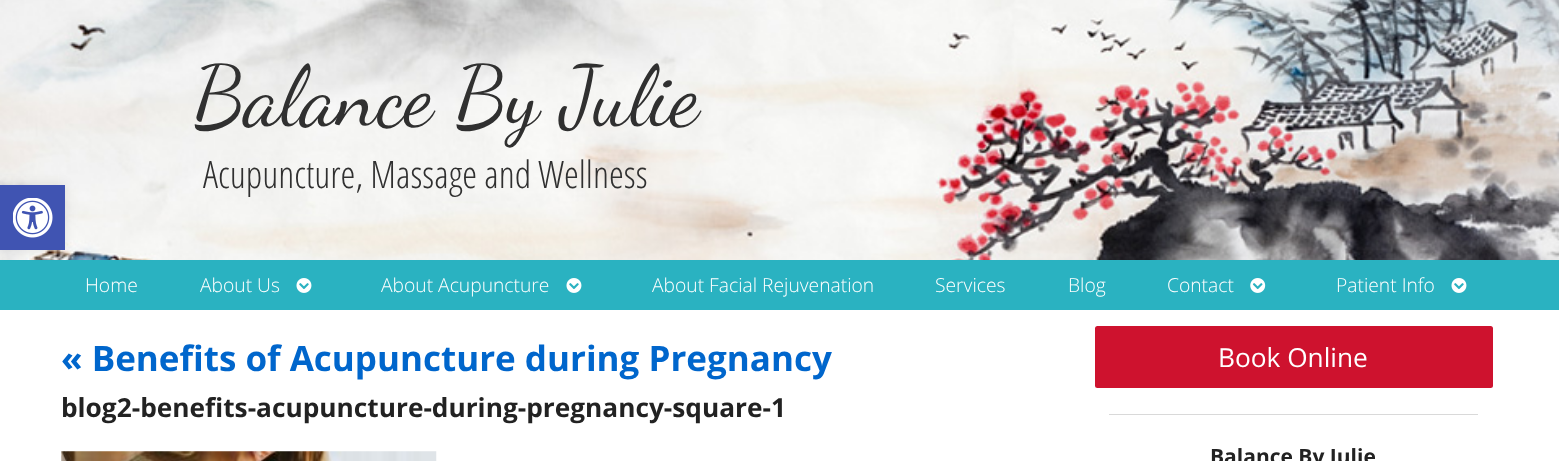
<svg xmlns="http://www.w3.org/2000/svg" width="1559" height="461" viewBox="0 0 1559 461">
  <rect width="100%" height="100%" fill="rgb(255,255,255)"/>
  <image x="0" y="0" width="1559" height="260" href="pic2.png"/>
  <rect x="0" y="260" width="1559" height="50" fill="rgb(42,178,193)"/>
  <rect x="0" y="185" width="65" height="65" fill="rgba(0,0,0,0.1)" filter="blur(6px)"/>
  <rect x="0" y="185" width="65" height="65" fill="rgb(64,84,178)"/>
  <image x="13" y="198" width="40" height="40" href="pic1.png"/>
  <text x="193" y="124" font-family="Dancing Script" font-size="84.5" fill="rgb(48,48,48)">Balance By Julie</text>
  <text x="203" y="188" font-family="Open Sans Condensed" font-size="37.75" font-weight="300" fill="rgb(48,48,48)">Acupuncture, Massage and Wellness</text>
  <g font-family="Open Sans" font-size="19.25" font-weight="300" fill="rgb(255,255,255)">
    <text x="85" y="292">Home</text>
    <text x="200" y="292">About Us</text>
  </g>
  <image x="296" y="278" width="16" height="15" href="pic3.png"/>
  <text x="381" y="292" font-family="Open Sans" font-size="19.25" font-weight="300" fill="rgb(255,255,255)">About Acupuncture</text>
  <image x="566" y="278" width="16" height="15" href="pic3.png"/>
  <g font-family="Open Sans" font-size="19.25" font-weight="300" fill="rgb(255,255,255)">
    <text x="652" y="292">About Facial Rejuvenation</text>
    <text x="935" y="292">Services</text>
    <text x="1068" y="292">Blog</text>
    <text x="1167" y="292">Contact</text>
  </g>
  <image x="1250" y="278" width="16" height="15" href="pic4.png"/>
  <text x="1336" y="292" font-family="Open Sans" font-size="19.25" font-weight="300" fill="rgb(255,255,255)">Patient Info</text>
  <image x="1451" y="278" width="16" height="15" href="pic3.png"/>
  <text x="61" y="371" font-family="Open Sans" font-size="35" font-weight="bold" fill="rgb(0,102,204)">« Benefits of Acupuncture during Pregnancy</text>
  <text x="61" y="417" font-family="Open Sans" font-size="26.25" font-weight="bold" fill="rgb(34,34,34)">blog2-benefits-acupuncture-during-pregnancy-square-1</text>
  <image x="61" y="451" width="376" height="10" href="pic5.png"/>
  <rect x="1095" y="326" width="398" height="62" rx="2.5" fill="rgb(206,18,46)"/>
  <text x="1218" y="367" font-family="Open Sans" font-size="26.25" fill="rgb(255,255,255)">Book Online</text>
  <rect x="1109" y="414" width="369" height="1" fill="rgb(217,217,217)"/>
  <text x="1210" y="464" font-family="Open Sans" font-size="21" font-weight="bold" fill="rgb(34,34,34)">Balance By Julie</text>
</svg>
